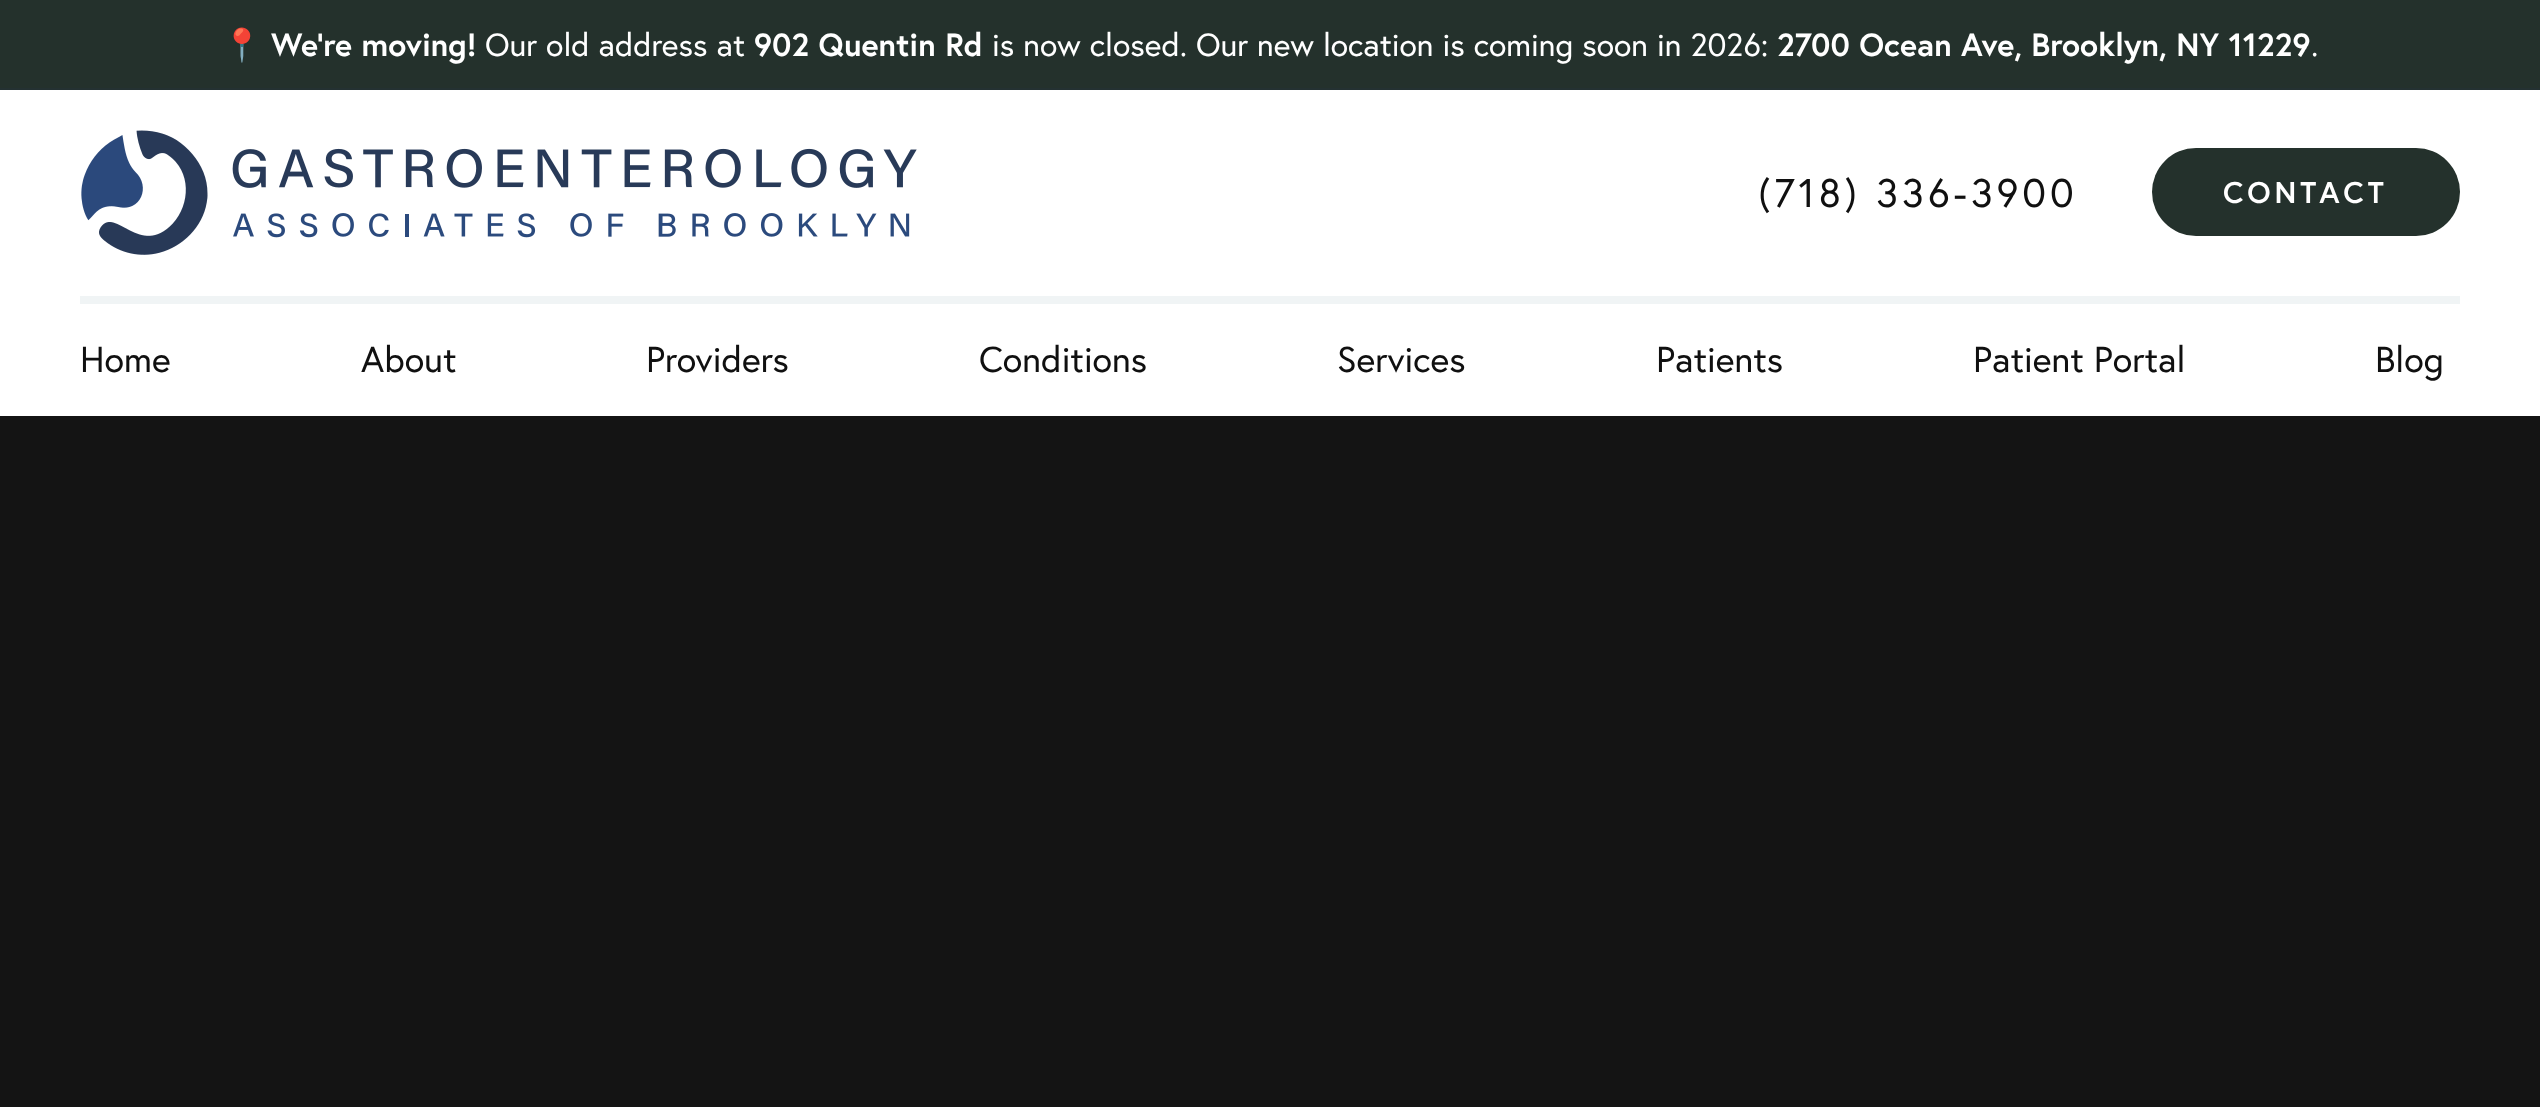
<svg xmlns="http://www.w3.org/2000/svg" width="2540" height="1107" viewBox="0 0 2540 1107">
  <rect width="100%" height="100%" fill="rgb(255,255,255)"/>
  <rect x="0" y="0" width="2540" height="88" fill="rgb(36,49,44)"/>
  <rect x="0" y="88" width="2540" height="2" fill="rgb(36,49,50)"/>
  <text x="222" y="56" font-family="Noto Color Emoji" font-size="32" fill="rgb(255,255,255)">📍</text>
  <text x="271" y="56" font-family="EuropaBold" font-size="32" font-weight="bold" fill="rgb(255,255,255)">We’re moving!</text>
  <text x="485" y="56" font-family="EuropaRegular" font-size="32" fill="rgb(255,255,255)">Our old address at</text>
  <text x="754" y="56" font-family="EuropaBold" font-size="32" font-weight="bold" fill="rgb(255,255,255)">902 Quentin Rd</text>
  <text x="992" y="56" font-family="EuropaRegular" font-size="32" fill="rgb(255,255,255)">is now closed. Our new location is coming soon in 2026:</text>
  <text x="1777" y="56" font-family="EuropaBold" font-size="32" font-weight="bold" fill="rgb(255,255,255)">2700 Ocean Ave, Brooklyn, NY 11229</text>
  <text x="2311" y="56" font-family="EuropaRegular" font-size="32" fill="rgb(255,255,255)">.</text>
  <rect x="80" y="296" width="2380" height="8" fill="rgb(240,244,245)"/>
  <image x="81" y="130" width="836" height="125" href="pic1.png"/>
  <text x="1758" y="207" font-family="EuropaRegular" font-size="40" letter-spacing="4" fill="rgb(16,16,16)">(718) 336-3900</text>
  <rect x="2152" y="148" width="308" height="88" rx="44" fill="rgb(36,49,44)"/>
  <text x="2223" y="203" font-family="EuropaBold" font-size="30" font-weight="bold" letter-spacing="4" fill="rgb(255,255,255)">CONTACT</text>
  <g font-family="EuropaRegular" font-size="36" fill="rgb(16,16,16)">
    <text x="80" y="372">Home</text>
    <text x="361" y="372">About</text>
    <text x="646" y="372">Providers</text>
    <text x="979" y="372">Conditions</text>
    <text x="1337" y="372">Services</text>
    <text x="1656" y="372">Patients</text>
    <text x="1973" y="372">Patient Portal</text>
    <text x="2375" y="372">Blog</text>
  </g>
  <rect x="0" y="416" width="2540" height="691" fill="rgb(20,20,20)"/>
</svg>
